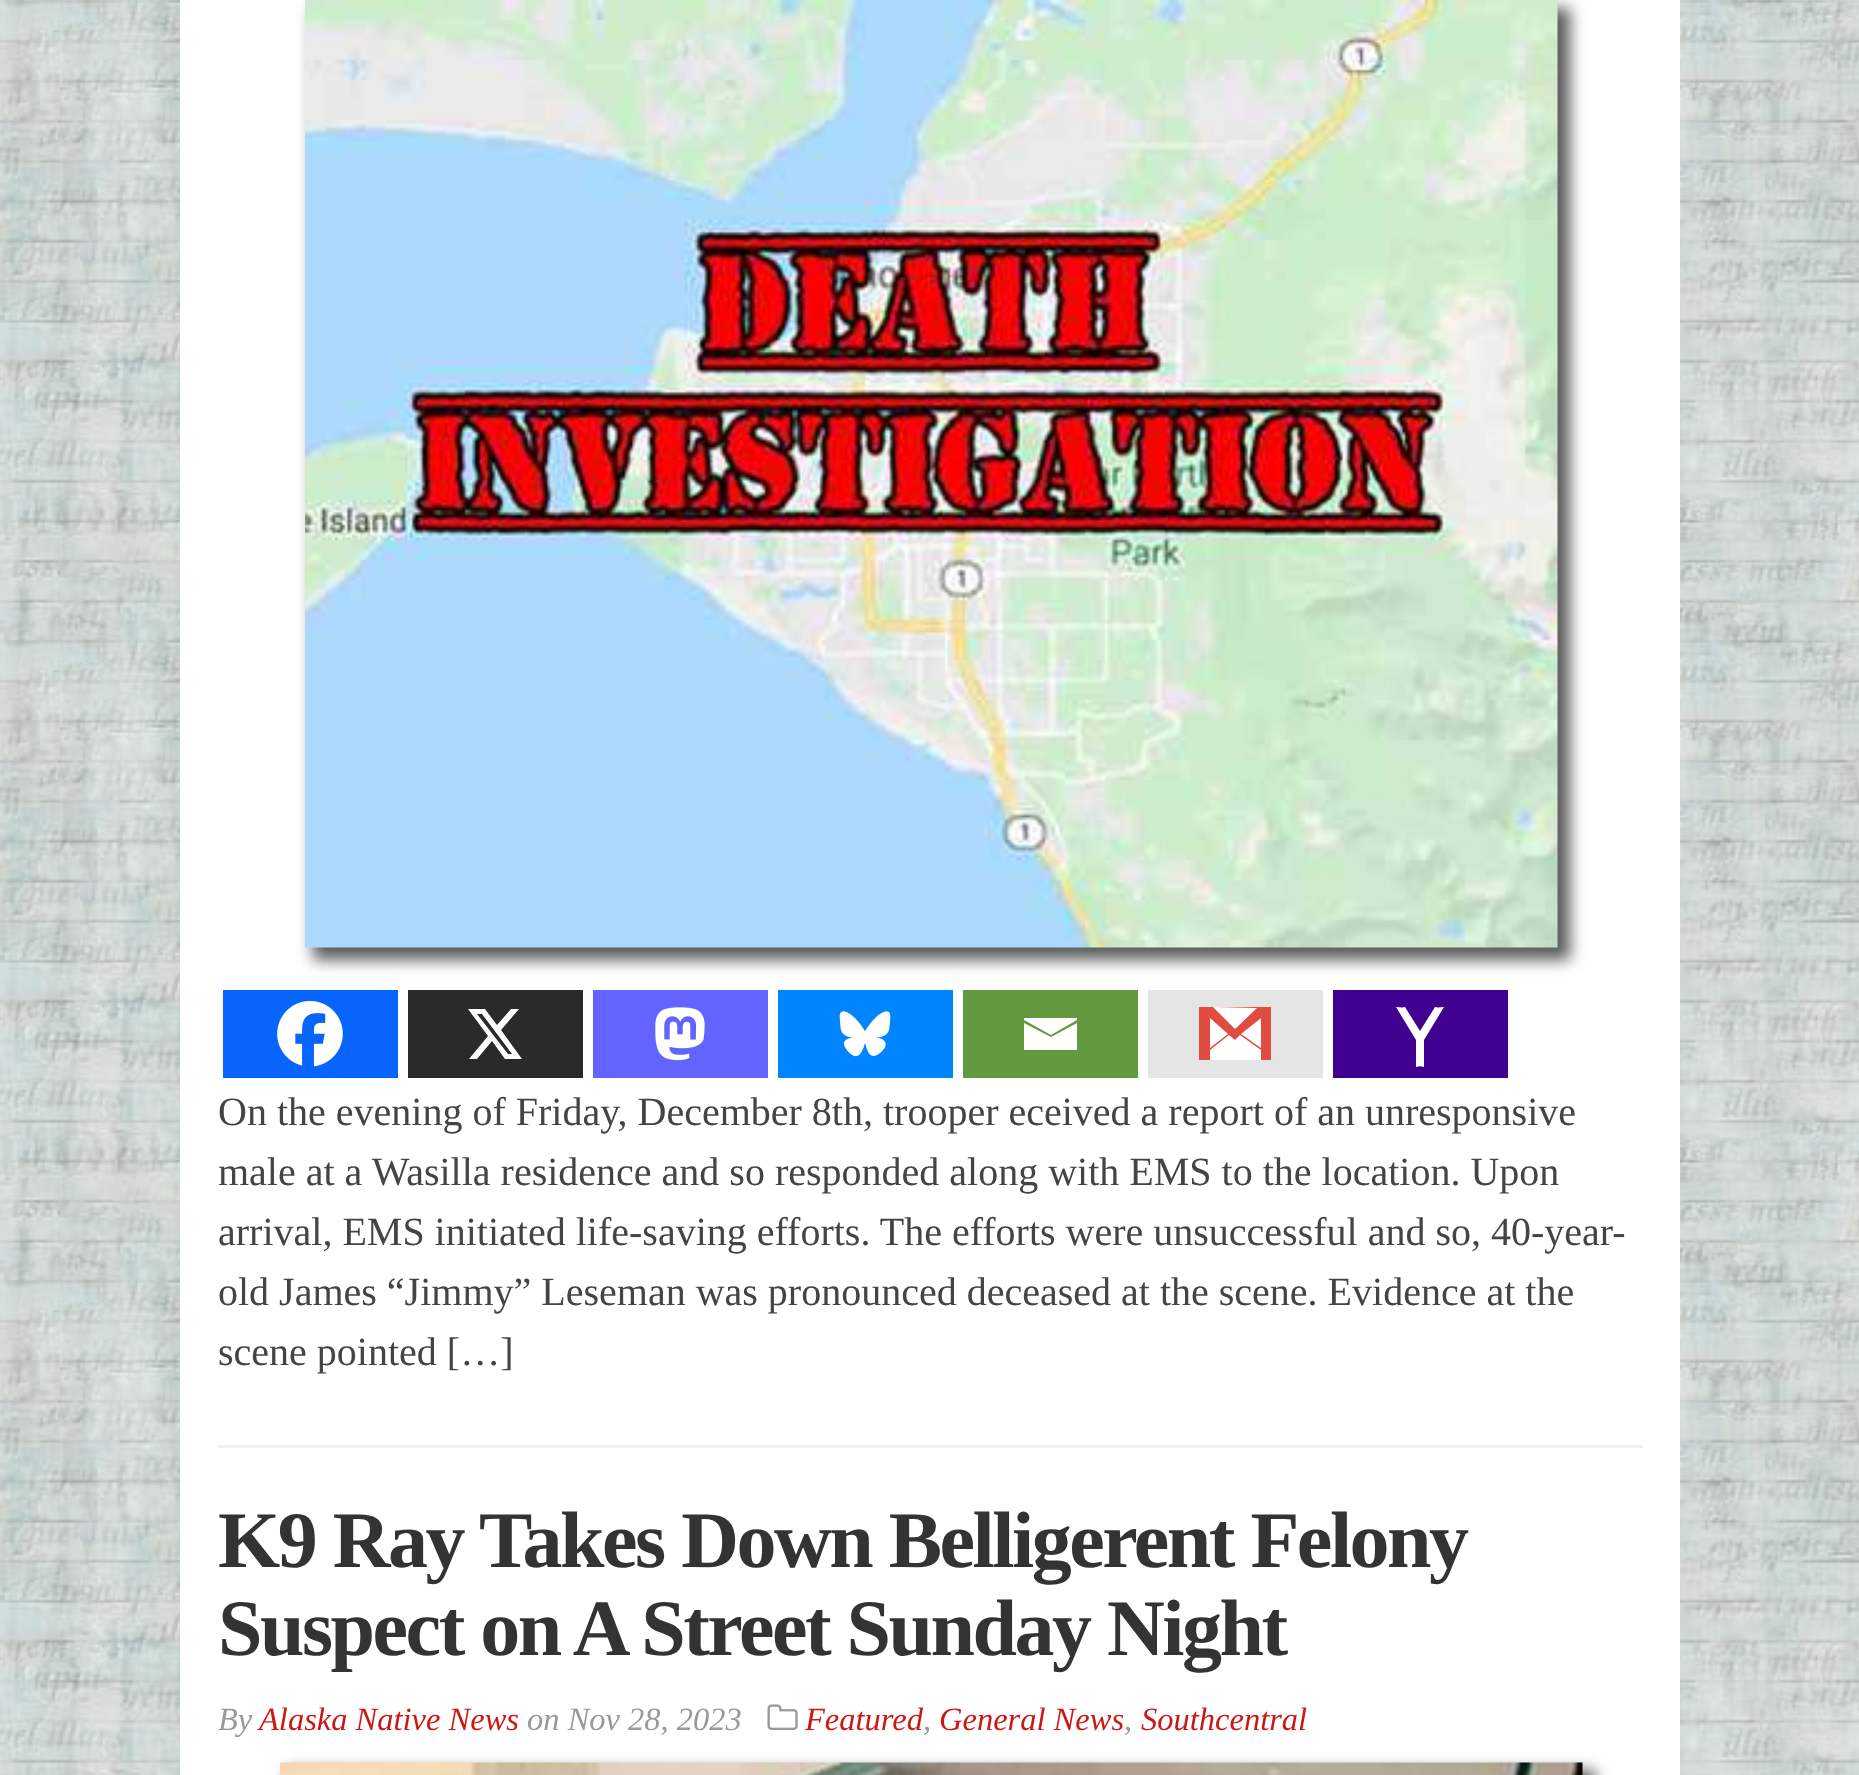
<svg xmlns="http://www.w3.org/2000/svg" width="1859" height="1775" viewBox="0 0 1859 1775">
  <rect width="100%" height="100%" fill="rgb(255,255,255)"/>
  <image x="0" y="0" width="1859" height="1775" href="pic1.png"/>
  <rect x="180" y="0" width="1500" height="1775" fill="rgb(255,255,255)"/>
  <rect x="218" y="1445" width="1425" height="3" fill="rgb(239,239,239)"/>
  <rect x="313" y="8" width="1257" height="952" fill="rgb(91,91,91)" filter="blur(7.5px)"/>
  <image x="305" y="0" width="1253" height="948" href="pic2.png"/>
  <rect x="223" y="990" width="175" height="88" fill="rgb(7,101,254)"/>
  <image x="277" y="1000" width="66" height="67" href="pic3.png"/>
  <rect x="408" y="990" width="175" height="88" fill="rgb(42,42,42)"/>
  <path d="M511 1009H519L501 1030L522 1059H505L492 1041L477 1059H469L488 1036L468 1009H485L497 1025ZM508 1054H512L482 1014H477Z" fill="rgb(255,255,255)"/>
  <rect x="593" y="990" width="175" height="88" fill="rgb(99,100,255)"/>
  <image x="655" y="1007" width="50" height="54" href="pic4.png"/>
  <rect x="778" y="990" width="175" height="88" fill="rgb(0,133,255)"/>
  <image x="839" y="1011" width="52" height="46" href="pic5.png"/>
  <rect x="963" y="990" width="175" height="88" fill="rgb(100,154,63)"/>
  <path d="M1021 1018H1077V1020L1051 1035L1024 1020V1018M1024 1023L1051 1037L1077 1023V1050H1024V1023" fill="rgb(255,255,255)"/>
  <rect x="1148" y="990" width="175" height="88" fill="rgb(229,229,229)"/>
  <rect x="1210" y="1007" width="51" height="53" fill="rgb(255,255,255)"/>
  <path d="M1199 1060H1271V1007H1199ZM1261 1050V1060H1210V1050L1229 1035L1235 1040L1240 1035ZM1261 1048L1241 1034L1261 1018ZM1257 1008L1235 1029L1213 1007ZM1228 1034L1210 1048V1018L1228 1034" fill="rgb(225,76,65)"/>
  <rect x="1333" y="990" width="175" height="88" fill="rgb(64,0,144)"/>
  <path d="M1435 1007C1438 1008 1441 1007 1444 1007L1424 1040V1067C1421 1066 1419 1066 1416 1067V1040L1396 1007C1399 1007 1402 1008 1405 1007L1420 1031Z" fill="rgb(255,255,255)"/>
  <g font-family="Liberation Serif" font-size="40" fill="rgb(68,68,68)">
    <text>
      <tspan x="218" y="1125">On the evening of Friday, December 8th, trooper eceived a report of an unresponsive</tspan>
      <tspan x="218" y="1185">male at a Wasilla residence and so responded along with EMS to the location. Upon</tspan>
      <tspan x="218" y="1245">arrival, EMS initiated life-saving efforts. The efforts were unsuccessful and so, 40-year-</tspan>
      <tspan x="218" y="1305">old James “Jimmy” Leseman was pronounced deceased at the scene. Evidence at the</tspan>
      <tspan x="218" y="1365">scene pointed […]</tspan>
    </text>
  </g>
  <g font-family="Liberation Serif" font-size="80" font-weight="bold" letter-spacing="-2.5" fill="rgb(51,51,51)">
    <text>
      <tspan x="218" y="1567">K9 Ray Takes Down Belligerent Felony</tspan>
      <tspan x="218" y="1655">Suspect on A Street Sunday Night</tspan>
    </text>
  </g>
  <text x="218" y="1730" font-family="Liberation Serif" font-size="32.5" font-style="italic" fill="rgb(153,153,153)">By</text>
  <text x="259" y="1730" font-family="Liberation Serif" font-size="32.5" font-style="italic" fill="rgb(205,23,19)">Alaska Native News</text>
  <text x="527" y="1730" font-family="Liberation Serif" font-size="32.5" font-style="italic" fill="rgb(153,153,153)">on Nov 28, 2023</text>
  <image x="767" y="1704" width="31" height="26" href="pic6.png"/>
  <text x="805" y="1730" font-family="Liberation Serif" font-size="32.5" font-style="italic" fill="rgb(205,23,19)">Featured</text>
  <text x="923" y="1730" font-family="Liberation Serif" font-size="32.5" font-style="italic" fill="rgb(153,153,153)">,</text>
  <text x="939" y="1730" font-family="Liberation Serif" font-size="32.5" font-style="italic" fill="rgb(205,23,19)">General News</text>
  <text x="1124" y="1730" font-family="Liberation Serif" font-size="32.5" font-style="italic" fill="rgb(153,153,153)">,</text>
  <text x="1141" y="1730" font-family="Liberation Serif" font-size="32.5" font-style="italic" fill="rgb(205,23,19)">Southcentral</text>
  <rect x="288" y="1770" width="1307" height="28" fill="rgb(91,91,91)" filter="blur(7.5px)"/>
  <image x="280" y="1762" width="1303" height="13" href="pic7.png"/>
</svg>
